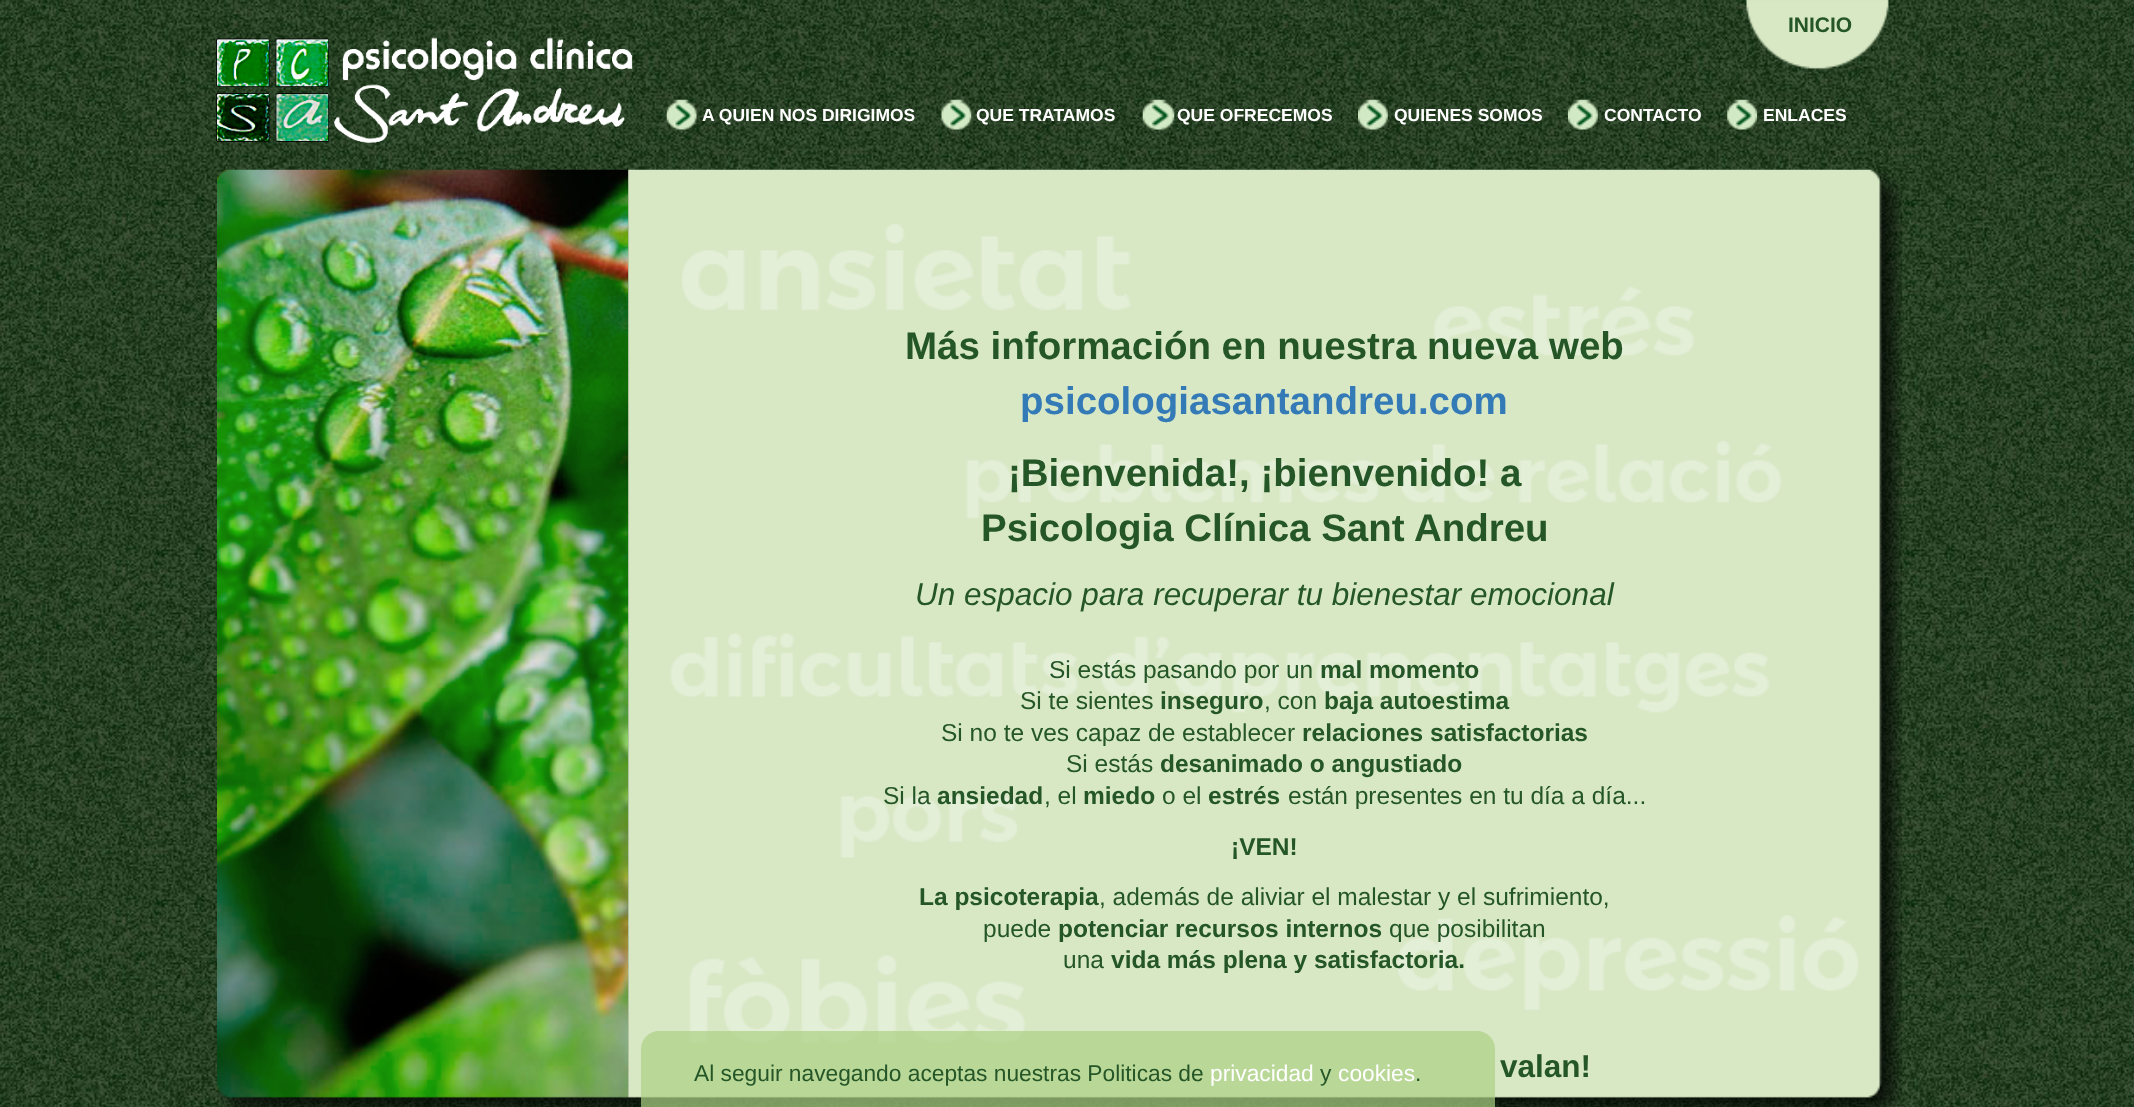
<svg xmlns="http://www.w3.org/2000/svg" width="2134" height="1107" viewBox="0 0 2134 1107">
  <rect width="100%" height="100%" fill="rgb(255,255,255)"/>
  <image x="0" y="0" width="2134" height="1107" href="pic1.png"/>
  <image x="216" y="37" width="417" height="107" href="pic2.png"/>
  <image x="1746" y="0" width="143" height="69" href="pic3.png"/>
  <text x="1788" y="32" font-family="Liberation Sans" font-size="21" font-weight="bold" fill="rgb(37,86,39)">INICIO</text>
  <image x="666" y="99" width="31" height="31" href="pic4.png"/>
  <text x="702" y="121" font-family="Liberation Sans" font-size="17.5" font-weight="bold" fill="rgb(255,255,255)">A QUIEN NOS DIRIGIMOS</text>
  <image x="941" y="99" width="31" height="31" href="pic5.png"/>
  <text x="976" y="121" font-family="Liberation Sans" font-size="17.5" font-weight="bold" fill="rgb(255,255,255)">QUE TRATAMOS</text>
  <image x="1142" y="99" width="33" height="31" href="pic6.png"/>
  <text x="1177" y="121" font-family="Liberation Sans" font-size="17.5" font-weight="bold" fill="rgb(255,255,255)">QUE OFRECEMOS</text>
  <image x="1358" y="99" width="30" height="31" href="pic7.png"/>
  <text x="1394" y="121" font-family="Liberation Sans" font-size="17.5" font-weight="bold" fill="rgb(255,255,255)">QUIENES SOMOS</text>
  <image x="1568" y="99" width="30" height="31" href="pic8.png"/>
  <text x="1604" y="121" font-family="Liberation Sans" font-size="17.5" font-weight="bold" fill="rgb(255,255,255)">CONTACTO</text>
  <image x="1727" y="99" width="30" height="31" href="pic9.png"/>
  <text x="1763" y="121" font-family="Liberation Sans" font-size="17.5" font-weight="bold" fill="rgb(255,255,255)">ENLACES</text>
  <image x="217" y="169" width="412" height="938" href="pic10.png"/>
  <image x="628" y="169" width="1274" height="938" href="pic11.png"/>
  <text x="905" y="359" font-family="Liberation Sans" font-size="38.5" font-weight="bold" fill="rgb(37,86,39)">Más información en nuestra nueva web</text>
  <text x="1020" y="414" font-family="Liberation Sans" font-size="38.5" font-weight="bold" fill="rgb(51,122,183)">psicologiasantandreu.com</text>
  <g font-family="Liberation Sans" font-size="38.5" font-weight="bold" fill="rgb(37,86,39)">
    <text x="1008" y="486">¡Bienvenida!, ¡bienvenido! a</text>
    <text x="981" y="541">Psicologia Clínica Sant Andreu</text>
  </g>
  <text x="915" y="605" font-family="Liberation Sans" font-size="31.5" font-style="italic" fill="rgb(37,86,39)">Un espacio para recuperar tu bienestar emocional</text>
  <text x="1049" y="678" font-family="Liberation Sans" font-size="24.5" fill="rgb(37,86,39)">Si estás pasando por un</text>
  <text x="1320" y="678" font-family="Liberation Sans" font-size="24.5" font-weight="bold" fill="rgb(37,86,39)">mal momento</text>
  <text x="1020" y="709" font-family="Liberation Sans" font-size="24.5" fill="rgb(37,86,39)">Si te sientes</text>
  <text x="1160" y="709" font-family="Liberation Sans" font-size="24.5" font-weight="bold" fill="rgb(37,86,39)">inseguro</text>
  <text x="1264" y="709" font-family="Liberation Sans" font-size="24.5" fill="rgb(37,86,39)">, con</text>
  <text x="1324" y="709" font-family="Liberation Sans" font-size="24.5" font-weight="bold" fill="rgb(37,86,39)">baja autoestima</text>
  <text x="941" y="741" font-family="Liberation Sans" font-size="24.5" fill="rgb(37,86,39)">Si no te ves capaz de establecer</text>
  <text x="1302" y="741" font-family="Liberation Sans" font-size="24.5" font-weight="bold" fill="rgb(37,86,39)">relaciones satisfactorias</text>
  <text x="1066" y="772" font-family="Liberation Sans" font-size="24.5" fill="rgb(37,86,39)">Si estás</text>
  <text x="1160" y="772" font-family="Liberation Sans" font-size="24.5" font-weight="bold" fill="rgb(37,86,39)">desanimado o angustiado</text>
  <text x="883" y="804" font-family="Liberation Sans" font-size="24.5" fill="rgb(37,86,39)">Si la</text>
  <text x="937" y="804" font-family="Liberation Sans" font-size="24.5" font-weight="bold" fill="rgb(37,86,39)">ansiedad</text>
  <text x="1044" y="804" font-family="Liberation Sans" font-size="24.5" fill="rgb(37,86,39)">, el</text>
  <text x="1083" y="804" font-family="Liberation Sans" font-size="24.5" font-weight="bold" fill="rgb(37,86,39)">miedo</text>
  <text x="1162" y="804" font-family="Liberation Sans" font-size="24.5" fill="rgb(37,86,39)">o el</text>
  <text x="1208" y="804" font-family="Liberation Sans" font-size="24.5" font-weight="bold" fill="rgb(37,86,39)">estrés</text>
  <text x="1288" y="804" font-family="Liberation Sans" font-size="24.5" fill="rgb(37,86,39)">están presentes en tu día a día...</text>
  <g font-family="Liberation Sans" font-size="24.5" font-weight="bold" fill="rgb(37,86,39)">
    <text x="1231" y="855">¡VEN!</text>
    <text x="919" y="905">La psicoterapia</text>
  </g>
  <g font-family="Liberation Sans" font-size="24.5" fill="rgb(37,86,39)">
    <text x="1099" y="905">, además de aliviar el malestar y el sufrimiento,</text>
    <text x="983" y="937">puede</text>
  </g>
  <text x="1058" y="937" font-family="Liberation Sans" font-size="24.5" font-weight="bold" fill="rgb(37,86,39)">potenciar recursos internos</text>
  <g font-family="Liberation Sans" font-size="24.5" fill="rgb(37,86,39)">
    <text x="1389" y="937">que posibilitan</text>
    <text x="1063" y="968">una</text>
  </g>
  <text x="1111" y="968" font-family="Liberation Sans" font-size="24.5" font-weight="bold" fill="rgb(37,86,39)">vida más plena y satisfactoria.</text>
  <text x="1500" y="1077" font-family="Liberation Sans" font-size="31.5" font-weight="bold" fill="rgb(37,86,39)">valan!</text>
  <path d="M659 1031H1477C1487 1031 1495 1039 1495 1049V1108H641V1049C641 1039 649 1031 659 1031Z" fill="rgba(172,208,132,0.71)"/>
  <text x="694" y="1081" font-family="Liberation Sans" font-size="22.75" fill="rgb(37,86,39)">Al seguir navegando aceptas nuestras Politicas de</text>
  <text x="1210" y="1081" font-family="Liberation Sans" font-size="22.75" fill="rgb(255,255,255)">privacidad</text>
  <text x="1320" y="1081" font-family="Liberation Sans" font-size="22.75" fill="rgb(37,86,39)">y</text>
  <text x="1338" y="1081" font-family="Liberation Sans" font-size="22.75" fill="rgb(255,255,255)">cookies</text>
  <text x="1415" y="1081" font-family="Liberation Sans" font-size="22.75" fill="rgb(37,86,39)">.</text>
</svg>
